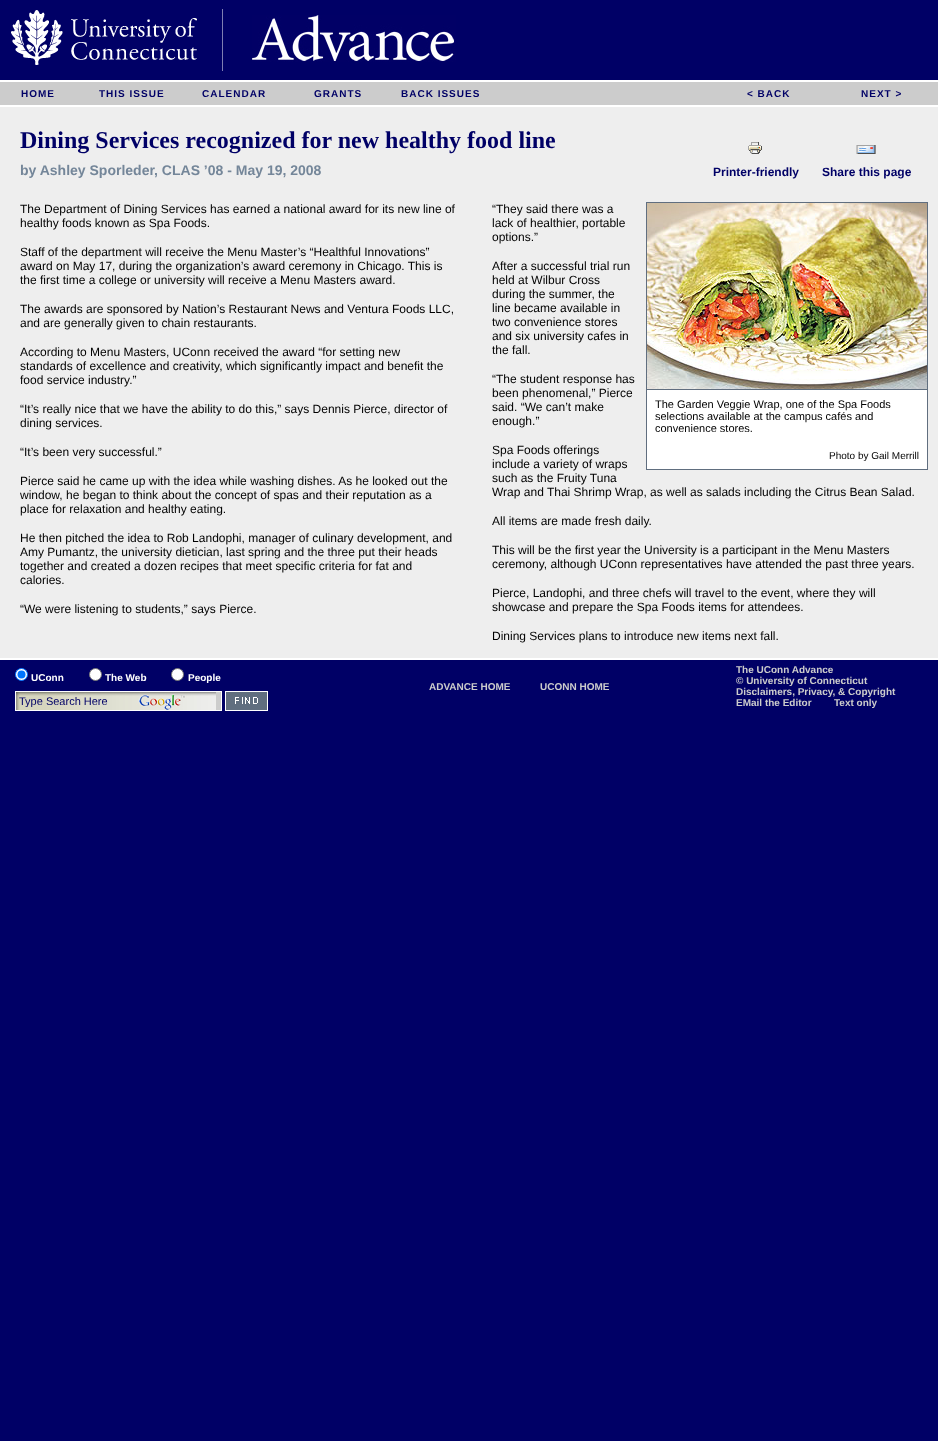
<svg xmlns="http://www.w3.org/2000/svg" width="938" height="1441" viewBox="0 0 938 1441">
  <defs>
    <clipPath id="clip1"><rect x="16" y="695" width="205" height="12"/></clipPath>
  </defs>
  <rect width="100%" height="100%" fill="rgb(0,0,102)"/>
  <rect x="0" y="80" width="938" height="2" fill="rgb(255,255,255)"/>
  <image x="11" y="9" width="212" height="62" href="pic1.png"/>
  <image x="252" y="15" width="204" height="47" href="pic2.png"/>
  <rect x="0" y="82" width="938" height="23" fill="rgb(204,204,204)"/>
  <rect x="0" y="105" width="938" height="2" fill="rgb(255,255,255)"/>
  <g font-family="Liberation Sans" font-size="10" font-weight="bold" letter-spacing="1" fill="rgb(0,0,102)">
    <text x="21" y="97">HOME</text>
    <text x="99" y="97">THIS ISSUE</text>
    <text x="202" y="97">CALENDAR</text>
    <text x="314" y="97">GRANTS</text>
    <text x="401" y="97">BACK ISSUES</text>
    <text x="747" y="97">&lt; BACK</text>
    <text x="861" y="97">NEXT &gt;</text>
  </g>
  <rect x="0" y="107" width="938" height="551" fill="rgb(238,238,238)"/>
  <text x="20" y="148" font-family="Liberation Serif" font-size="24" font-weight="bold" fill="rgb(0,0,102)">Dining Services recognized for new healthy food line</text>
  <text x="20" y="175" font-family="Liberation Sans" font-size="14" font-weight="bold" fill="rgb(116,134,153)">by Ashley Sporleder, CLAS ’08 - May 19, 2008</text>
  <image x="748" y="142" width="14" height="12" href="pic3.png"/>
  <image x="856" y="145" width="20" height="9" href="pic4.png"/>
  <g font-family="Liberation Sans" font-size="12" font-weight="bold" fill="rgb(0,0,102)">
    <text x="713" y="176">Printer-friendly</text>
    <text x="822" y="176">Share this page</text>
  </g>
  <g font-family="Liberation Sans" font-size="12" fill="rgb(0,0,0)">
    <text>
      <tspan x="20" y="213">The Department of Dining Services has earned a national award for its new line of</tspan>
      <tspan x="20" y="227">healthy foods known as Spa Foods.</tspan>
    </text>
    <text>
      <tspan x="20" y="256">Staff of the department will receive the Menu Master’s “Healthful Innovations”</tspan>
      <tspan x="20" y="270">award on May 17, during the organization’s award ceremony in Chicago. This is</tspan>
      <tspan x="20" y="284">the first time a college or university will receive a Menu Masters award.</tspan>
    </text>
    <text>
      <tspan x="20" y="313">The awards are sponsored by Nation’s Restaurant News and Ventura Foods LLC,</tspan>
      <tspan x="20" y="327">and are generally given to chain restaurants.</tspan>
    </text>
    <text>
      <tspan x="20" y="356">According to Menu Masters, UConn received the award “for setting new</tspan>
      <tspan x="20" y="370">standards of excellence and creativity, which significantly impact and benefit the</tspan>
      <tspan x="20" y="384">food service industry.”</tspan>
    </text>
    <text>
      <tspan x="20" y="413">“It’s really nice that we have the ability to do this,” says Dennis Pierce, director of</tspan>
      <tspan x="20" y="427">dining services.</tspan>
    </text>
    <text x="20" y="456">“It’s been very successful.”</text>
    <text>
      <tspan x="20" y="485">Pierce said he came up with the idea while washing dishes. As he looked out the</tspan>
      <tspan x="20" y="499">window, he began to think about the concept of spas and their reputation as a</tspan>
      <tspan x="20" y="513">place for relaxation and healthy eating.</tspan>
    </text>
    <text>
      <tspan x="20" y="542">He then pitched the idea to Rob Landophi, manager of culinary development, and</tspan>
      <tspan x="20" y="556">Amy Pumantz, the university dietician, last spring and the three put their heads</tspan>
      <tspan x="20" y="570">together and created a dozen recipes that meet specific criteria for fat and</tspan>
      <tspan x="20" y="584">calories.</tspan>
    </text>
    <text x="20" y="613">“We were listening to students,” says Pierce.</text>
    <text>
      <tspan x="492" y="213">“They said there was a</tspan>
      <tspan x="492" y="227">lack of healthier, portable</tspan>
      <tspan x="492" y="241">options.”</tspan>
    </text>
    <text>
      <tspan x="492" y="270">After a successful trial run</tspan>
      <tspan x="492" y="284">held at Wilbur Cross</tspan>
      <tspan x="492" y="298">during the summer, the</tspan>
      <tspan x="492" y="312">line became available in</tspan>
      <tspan x="492" y="326">two convenience stores</tspan>
      <tspan x="492" y="340">and six university cafes in</tspan>
      <tspan x="492" y="354">the fall.</tspan>
    </text>
    <text>
      <tspan x="492" y="383">“The student response has</tspan>
      <tspan x="492" y="397">been phenomenal,” Pierce</tspan>
      <tspan x="492" y="411">said. “We can’t make</tspan>
      <tspan x="492" y="425">enough.”</tspan>
    </text>
  </g>
  <rect x="646.5" y="202.5" width="281" height="187" fill="none" stroke="rgb(96,110,127)"/>
  <image x="647" y="203" width="280" height="186" href="pic5.png"/>
  <rect x="647" y="390" width="280" height="79" fill="rgb(255,255,255)"/>
  <rect x="927" y="390" width="1" height="80" fill="rgb(96,110,127)"/>
  <rect x="646" y="390" width="1" height="52" fill="rgb(96,110,127)"/>
  <g font-family="Liberation Sans" font-size="11" fill="rgb(0,0,0)">
    <text>
      <tspan x="655" y="408">The Garden Veggie Wrap, one of the Spa Foods</tspan>
      <tspan x="655" y="420">selections available at the campus cafés and</tspan>
      <tspan x="655" y="432">convenience stores.</tspan>
    </text>
  </g>
  <rect x="646" y="469" width="282" height="1" fill="rgb(96,110,127)"/>
  <rect x="646" y="442" width="1" height="28" fill="rgb(96,110,127)"/>
  <text x="829" y="459" font-family="Liberation Sans" font-size="10" fill="rgb(0,0,0)">Photo by Gail Merrill</text>
  <g font-family="Liberation Sans" font-size="12" fill="rgb(0,0,0)">
    <text>
      <tspan x="492" y="454">Spa Foods offerings</tspan>
      <tspan x="492" y="468">include a variety of wraps</tspan>
      <tspan x="492" y="482">such as the Fruity Tuna</tspan>
      <tspan x="492" y="496">Wrap and Thai Shrimp Wrap, as well as salads including the Citrus Bean Salad.</tspan>
    </text>
    <text x="492" y="525">All items are made fresh daily.</text>
    <text>
      <tspan x="492" y="554">This will be the first year the University is a participant in the Menu Masters</tspan>
      <tspan x="492" y="568">ceremony, although UConn representatives have attended the past three years.</tspan>
    </text>
    <text>
      <tspan x="492" y="597">Pierce, Landophi, and three chefs will travel to the event, where they will</tspan>
      <tspan x="492" y="611">showcase and prepare the Spa Foods items for attendees.</tspan>
    </text>
    <text x="492" y="640">Dining Services plans to introduce new items next fall.</text>
  </g>
  <rect x="0" y="658" width="938" height="2" fill="rgb(255,255,255)"/>
  <circle cx="21.5" cy="674.5" r="6" fill="rgb(255,255,255)" stroke="rgb(0,117,255)"/>
  <circle cx="21.5" cy="674.5" r="4" fill="rgb(0,117,255)"/>
  <text x="31" y="681" font-family="Liberation Sans" font-size="10" font-weight="bold" fill="rgb(255,255,255)">UConn</text>
  <circle cx="95.5" cy="674.5" r="6" fill="rgb(255,255,255)" stroke="rgb(118,118,118)"/>
  <text x="105" y="681" font-family="Liberation Sans" font-size="10" font-weight="bold" fill="rgb(255,255,255)">The Web</text>
  <circle cx="177.5" cy="674.5" r="6" fill="rgb(255,255,255)" stroke="rgb(118,118,118)"/>
  <text x="188" y="681" font-family="Liberation Sans" font-size="10" font-weight="bold" fill="rgb(255,255,255)">People</text>
  <rect x="216" y="692" width="5" height="18" fill="rgb(204,204,204)"/>
  <image x="16" y="692" width="200" height="18" href="pic6.png"/>
  <rect x="15.5" y="691.5" width="206" height="19" fill="none" stroke="rgb(255,255,255)"/>
  <g clip-path="url(#clip1)">
    <text x="19" y="705" font-family="Liberation Sans" font-size="11" fill="rgb(0,0,102)">Type Search Here</text>
  </g>
  <image x="225" y="691" width="43" height="20" href="pic7.png"/>
  <g font-family="Liberation Sans" font-size="10" font-weight="bold" fill="rgb(204,204,204)">
    <text x="429" y="690">ADVANCE HOME</text>
    <text x="540" y="690">UCONN HOME</text>
    <text>
      <tspan x="736" y="673">The UConn Advance</tspan>
      <tspan x="736" y="684">© University of Connecticut</tspan>
      <tspan x="736" y="695">Disclaimers, Privacy, &amp; Copyright</tspan>
      <tspan x="736" y="706">EMail the Editor</tspan>
    </text>
    <text x="834" y="706">Text only</text>
  </g>
</svg>
